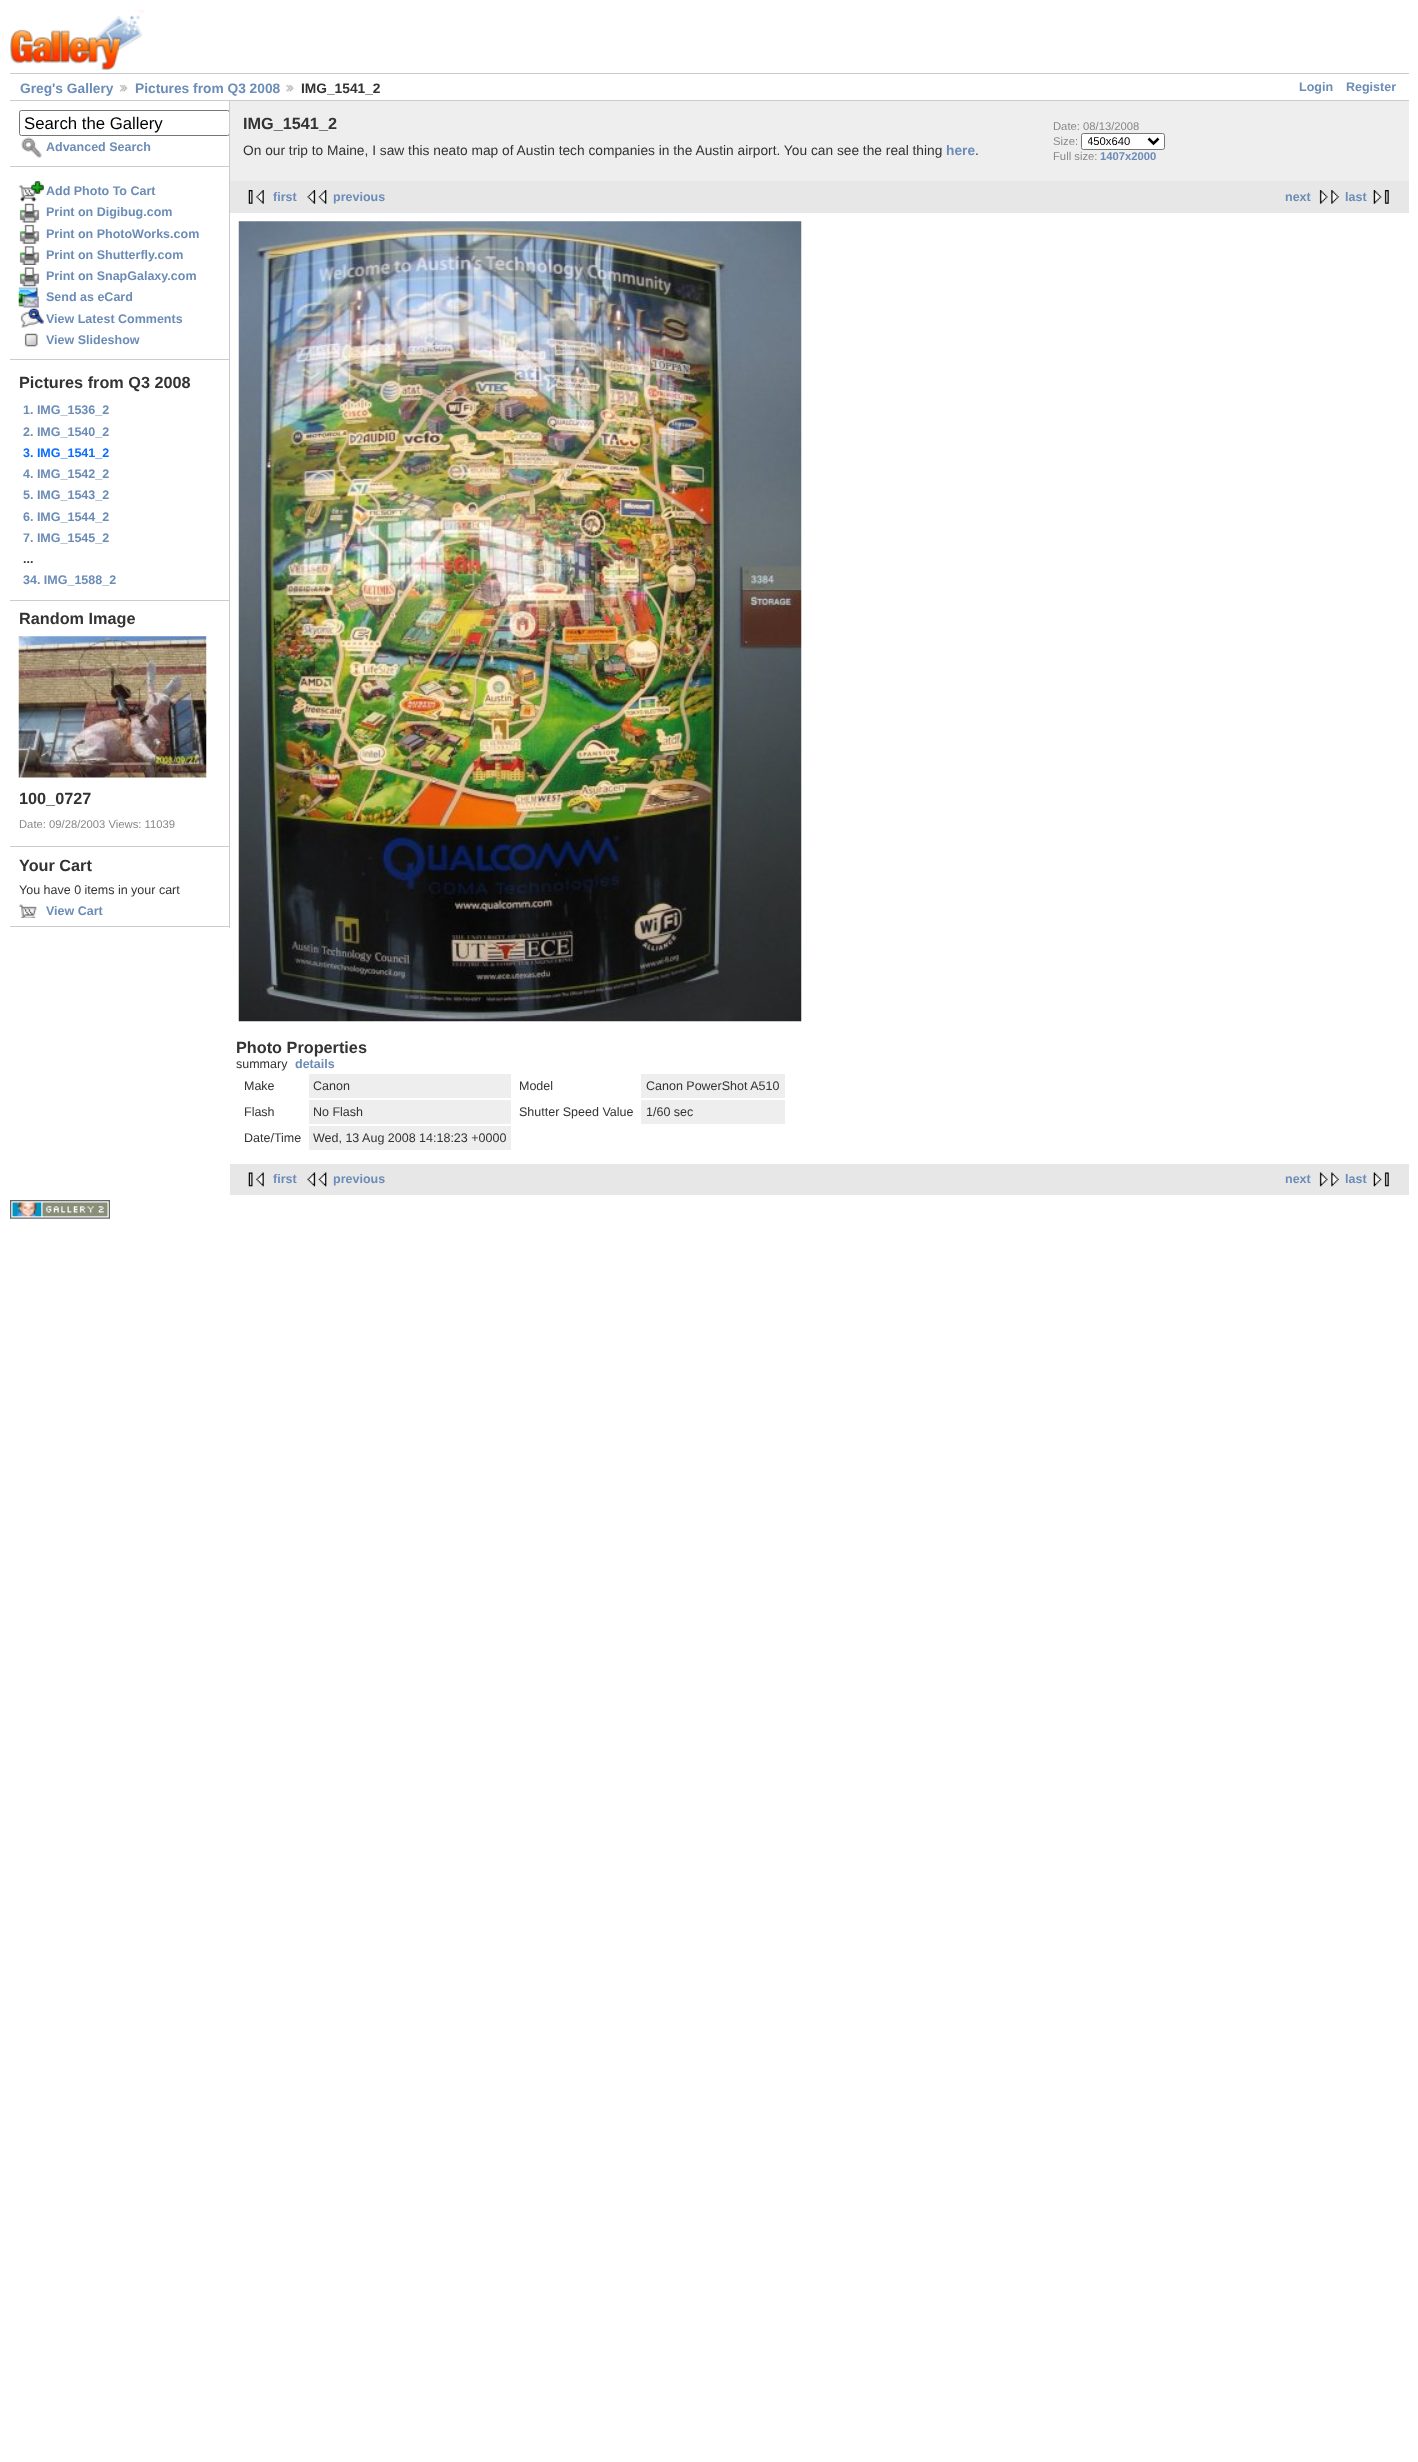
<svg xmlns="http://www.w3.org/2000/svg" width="1418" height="2462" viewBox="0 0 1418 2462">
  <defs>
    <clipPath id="clip1"><rect x="10" y="101" width="219" height="827"/></clipPath>
    <clipPath id="clip2"><rect x="1088" y="134" width="56" height="15"/></clipPath>
  </defs>
  <rect width="100%" height="100%" fill="rgb(255,255,255)"/>
  <image x="10" y="10" width="134" height="60" href="pic1.png"/>
  <rect x="10" y="73" width="1399" height="1" fill="rgb(204,204,204)"/>
  <rect x="10" y="100" width="1399" height="1" fill="rgb(204,204,204)"/>
  <text x="20" y="93" font-family="Liberation Sans" font-size="13.75" font-weight="bold" fill="rgb(107,140,183)">Greg's Gallery</text>
  <image x="120" y="84" width="8" height="8" href="pic2.png"/>
  <text x="135" y="93" font-family="Liberation Sans" font-size="13.75" font-weight="bold" fill="rgb(107,140,183)">Pictures from Q3 2008</text>
  <image x="286" y="85" width="8" height="7" href="pic3.png"/>
  <text x="301" y="93" font-family="Liberation Sans" font-size="13.75" font-weight="bold" fill="rgb(51,51,51)">IMG_1541_2</text>
  <g font-family="Liberation Sans" font-size="12.5" font-weight="bold" fill="rgb(107,140,183)">
    <text x="1299" y="91">Login</text>
    <text x="1346" y="91">Register</text>
  </g>
  <rect x="229" y="101" width="1" height="827" fill="rgb(204,204,204)"/>
  <rect x="10" y="166" width="219" height="1" fill="rgb(204,204,204)"/>
  <g clip-path="url(#clip1)">
    <rect x="19.5" y="110.5" width="210" height="25" rx="2" fill="none" stroke="rgb(118,118,118)"/>
  </g>
  <text x="24" y="129" font-family="Liberation Sans" font-size="16.75" fill="rgb(0,0,0)">Search the Gallery</text>
  <image x="21" y="137" width="21" height="21" href="pic4.png"/>
  <text x="46" y="151" font-family="Liberation Sans" font-size="12.5" font-weight="bold" fill="rgb(107,140,183)">Advanced Search</text>
  <rect x="10" y="359" width="219" height="1" fill="rgb(204,204,204)"/>
  <image x="18" y="181" width="26" height="21" href="pic5.png"/>
  <text x="46" y="195" font-family="Liberation Sans" font-size="12.5" font-weight="bold" fill="rgb(107,140,183)">Add Photo To Cart</text>
  <image x="19" y="203" width="21" height="20" href="pic6.png"/>
  <text x="46" y="216" font-family="Liberation Sans" font-size="12.5" font-weight="bold" fill="rgb(107,140,183)">Print on Digibug.com</text>
  <image x="19" y="224" width="21" height="20" href="pic7.png"/>
  <text x="46" y="238" font-family="Liberation Sans" font-size="12.5" font-weight="bold" fill="rgb(107,140,183)">Print on PhotoWorks.com</text>
  <image x="19" y="246" width="21" height="19" href="pic8.png"/>
  <text x="46" y="259" font-family="Liberation Sans" font-size="12.5" font-weight="bold" fill="rgb(107,140,183)">Print on Shutterfly.com</text>
  <image x="19" y="267" width="21" height="20" href="pic9.png"/>
  <text x="46" y="280" font-family="Liberation Sans" font-size="12.5" font-weight="bold" fill="rgb(107,140,183)">Print on SnapGalaxy.com</text>
  <image x="18" y="287" width="21" height="21" href="pic10.png"/>
  <text x="46" y="301" font-family="Liberation Sans" font-size="12.5" font-weight="bold" fill="rgb(107,140,183)">Send as eCard</text>
  <image x="20" y="308" width="24" height="20" href="pic11.png"/>
  <text x="46" y="323" font-family="Liberation Sans" font-size="12.5" font-weight="bold" fill="rgb(107,140,183)">View Latest Comments</text>
  <image x="24" y="333" width="14" height="14" href="pic12.png"/>
  <text x="46" y="344" font-family="Liberation Sans" font-size="12.5" font-weight="bold" fill="rgb(107,140,183)">View Slideshow</text>
  <rect x="10" y="600" width="219" height="1" fill="rgb(204,204,204)"/>
  <text x="19" y="388" font-family="Liberation Sans" font-size="16.25" font-weight="bold" fill="rgb(51,51,51)">Pictures from Q3 2008</text>
  <g font-family="Liberation Sans" font-size="12.5" font-weight="bold" fill="rgb(107,140,183)">
    <text>
      <tspan x="23" y="414">1. IMG_1536_2</tspan>
      <tspan x="23" y="436">2. IMG_1540_2</tspan>
    </text>
  </g>
  <text x="23" y="457" font-family="Liberation Sans" font-size="12.5" font-weight="bold" fill="rgb(11,108,255)">3. IMG_1541_2</text>
  <g font-family="Liberation Sans" font-size="12.5" font-weight="bold" fill="rgb(107,140,183)">
    <text>
      <tspan x="23" y="478">4. IMG_1542_2</tspan>
      <tspan x="23" y="499">5. IMG_1543_2</tspan>
      <tspan x="23" y="521">6. IMG_1544_2</tspan>
      <tspan x="23" y="542">7. IMG_1545_2</tspan>
    </text>
  </g>
  <text x="23" y="563" font-family="Liberation Sans" font-size="12.5" font-weight="bold" fill="rgb(51,51,51)">...</text>
  <text x="23" y="584" font-family="Liberation Sans" font-size="12.5" font-weight="bold" fill="rgb(107,140,183)">34. IMG_1588_2</text>
  <rect x="10" y="846" width="219" height="1" fill="rgb(204,204,204)"/>
  <text x="19" y="624" font-family="Liberation Sans" font-size="16.25" font-weight="bold" fill="rgb(51,51,51)">Random Image</text>
  <image x="18" y="636" width="189" height="142" href="pic13.png"/>
  <text x="19" y="804" font-family="Liberation Sans" font-size="16.25" font-weight="bold" fill="rgb(51,51,51)">100_0727</text>
  <text x="19" y="828" font-family="Liberation Sans" font-size="11.25" fill="rgb(136,136,136)">Date: 09/28/2003 Views: 11039</text>
  <rect x="10" y="926" width="219" height="1" fill="rgb(204,204,204)"/>
  <text x="19" y="871" font-family="Liberation Sans" font-size="16.25" font-weight="bold" fill="rgb(51,51,51)">Your Cart</text>
  <text x="19" y="894" font-family="Liberation Sans" font-size="12.5" fill="rgb(51,51,51)">You have 0 items in your cart</text>
  <image x="18" y="904" width="19" height="14" href="pic14.png"/>
  <text x="46" y="915" font-family="Liberation Sans" font-size="12.5" font-weight="bold" fill="rgb(107,140,183)">View Cart</text>
  <rect x="230" y="101" width="1179" height="80" fill="rgb(238,238,238)"/>
  <text x="243" y="129" font-family="Liberation Sans" font-size="16.25" font-weight="bold" fill="rgb(51,51,51)">IMG_1541_2</text>
  <text x="243" y="155" font-family="Liberation Sans" font-size="13.75" fill="rgb(51,51,51)">On our trip to Maine, I saw this neato map of Austin tech companies in the Austin airport. You can see the real thing</text>
  <text x="946" y="155" font-family="Liberation Sans" font-size="13.75" font-weight="bold" fill="rgb(107,140,183)">here</text>
  <text x="975" y="155" font-family="Liberation Sans" font-size="13.75" fill="rgb(51,51,51)">.</text>
  <g font-family="Liberation Sans" font-size="11.25" fill="rgb(136,136,136)">
    <text>
      <tspan x="1053" y="130">Date: 08/13/2008</tspan>
      <tspan x="1053" y="145">Size:</tspan>
    </text>
  </g>
  <rect x="1081.5" y="133.5" width="83" height="16" rx="2" fill="rgb(255,255,255)" stroke="rgb(118,118,118)"/>
  <path d="M1148.5 138.5L1153.5 143.5L1158.5 138.5" fill="none" stroke="rgb(0,0,0)" stroke-width="2.5"/>
  <g clip-path="url(#clip2)">
    <text x="1087" y="145" font-family="Liberation Sans" font-size="11.25" fill="rgb(0,0,0)">450x640</text>
  </g>
  <text x="1053" y="160" font-family="Liberation Sans" font-size="11.25" fill="rgb(136,136,136)">Full size:</text>
  <text x="1100" y="160" font-family="Liberation Sans" font-size="11.25" font-weight="bold" fill="rgb(107,140,183)">1407x2000</text>
  <rect x="230" y="181" width="1179" height="32" fill="rgb(231,231,231)"/>
  <image x="248" y="190" width="16" height="14" href="pic15.png"/>
  <text x="273" y="201" font-family="Liberation Sans" font-size="12.5" font-weight="bold" fill="rgb(107,140,183)">first</text>
  <image x="307" y="190" width="20" height="14" href="pic16.png"/>
  <g font-family="Liberation Sans" font-size="12.5" font-weight="bold" fill="rgb(107,140,183)">
    <text x="333" y="201">previous</text>
    <text x="1285" y="201">next</text>
  </g>
  <image x="1319" y="190" width="20" height="14" href="pic17.png"/>
  <text x="1345" y="201" font-family="Liberation Sans" font-size="12.5" font-weight="bold" fill="rgb(107,140,183)">last</text>
  <image x="1373" y="190" width="16" height="14" href="pic18.png"/>
  <image x="238" y="221" width="564" height="801" href="pic19.png"/>
  <text x="236" y="1053" font-family="Liberation Sans" font-size="16.25" font-weight="bold" fill="rgb(51,51,51)">Photo Properties</text>
  <text x="236" y="1068" font-family="Liberation Sans" font-size="12.5" fill="rgb(51,51,51)">summary</text>
  <text x="295" y="1068" font-family="Liberation Sans" font-size="12.5" font-weight="bold" fill="rgb(107,140,183)">details</text>
  <text x="244" y="1090" font-family="Liberation Sans" font-size="12.5" fill="rgb(51,51,51)">Make</text>
  <rect x="309" y="1074" width="202" height="24" fill="rgb(238,238,238)"/>
  <g font-family="Liberation Sans" font-size="12.5" fill="rgb(51,51,51)">
    <text x="313" y="1090">Canon</text>
    <text x="519" y="1090">Model</text>
  </g>
  <rect x="641" y="1074" width="144" height="24" fill="rgb(238,238,238)"/>
  <g font-family="Liberation Sans" font-size="12.5" fill="rgb(51,51,51)">
    <text x="646" y="1090">Canon PowerShot A510</text>
    <text x="244" y="1116">Flash</text>
  </g>
  <rect x="309" y="1100" width="202" height="24" fill="rgb(238,238,238)"/>
  <g font-family="Liberation Sans" font-size="12.5" fill="rgb(51,51,51)">
    <text x="313" y="1116">No Flash</text>
    <text x="519" y="1116">Shutter Speed Value</text>
  </g>
  <rect x="641" y="1100" width="144" height="24" fill="rgb(238,238,238)"/>
  <g font-family="Liberation Sans" font-size="12.5" fill="rgb(51,51,51)">
    <text x="646" y="1116">1/60 sec</text>
    <text x="244" y="1142">Date/Time</text>
  </g>
  <rect x="309" y="1126" width="202" height="24" fill="rgb(238,238,238)"/>
  <text x="313" y="1142" font-family="Liberation Sans" font-size="12.5" fill="rgb(51,51,51)">Wed, 13 Aug 2008 14:18:23 +0000</text>
  <rect x="230" y="1164" width="1179" height="31" fill="rgb(231,231,231)"/>
  <image x="248" y="1172" width="16" height="15" href="pic20.png"/>
  <text x="273" y="1183" font-family="Liberation Sans" font-size="12.5" font-weight="bold" fill="rgb(107,140,183)">first</text>
  <image x="307" y="1172" width="20" height="15" href="pic21.png"/>
  <g font-family="Liberation Sans" font-size="12.5" font-weight="bold" fill="rgb(107,140,183)">
    <text x="333" y="1183">previous</text>
    <text x="1285" y="1183">next</text>
  </g>
  <image x="1319" y="1172" width="20" height="15" href="pic22.png"/>
  <text x="1345" y="1183" font-family="Liberation Sans" font-size="12.5" font-weight="bold" fill="rgb(107,140,183)">last</text>
  <image x="1373" y="1172" width="16" height="15" href="pic23.png"/>
  <image x="10" y="1200" width="100" height="19" href="pic24.png"/>
</svg>
